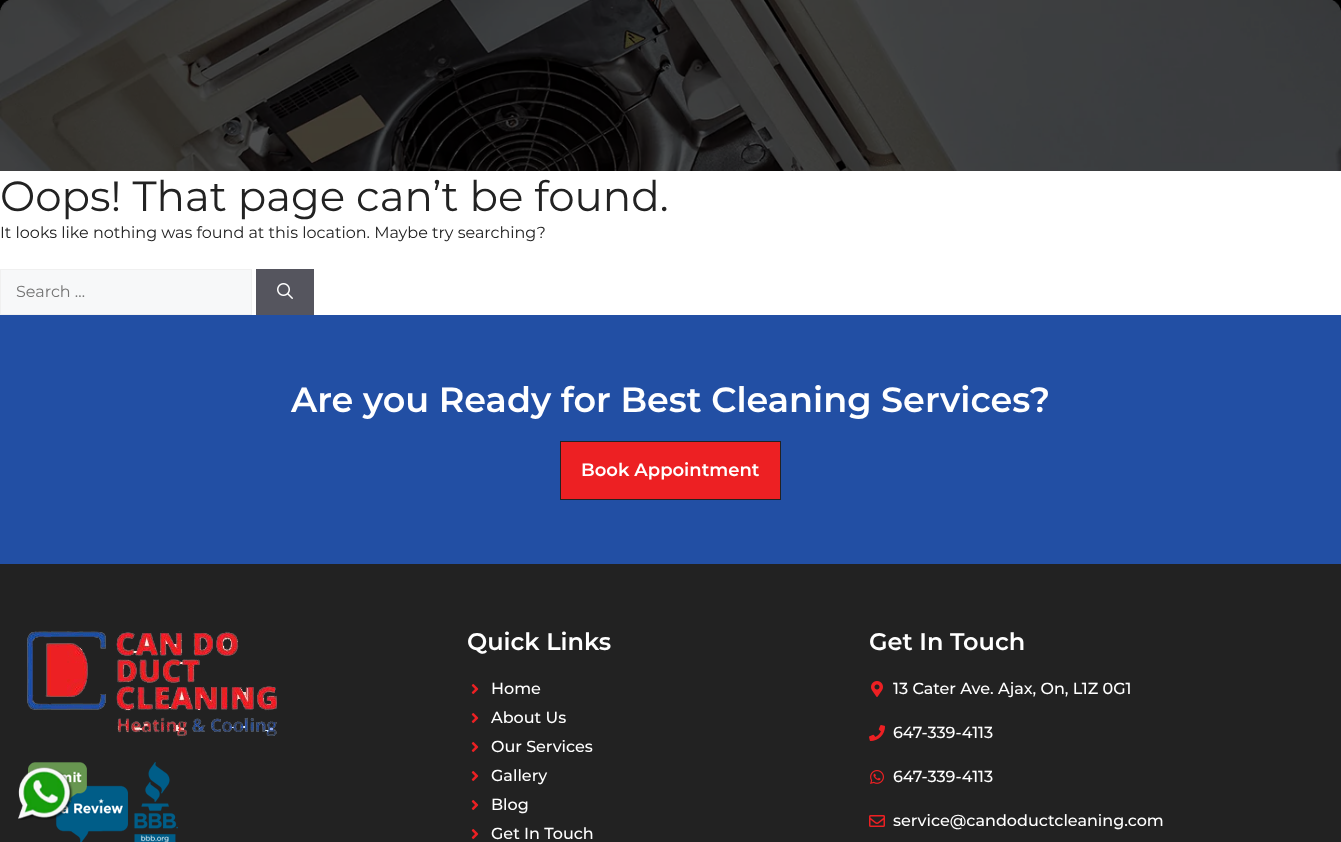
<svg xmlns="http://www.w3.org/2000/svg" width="1341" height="842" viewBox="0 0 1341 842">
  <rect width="100%" height="100%" fill="rgb(255,255,255)"/>
  <rect x="0" y="0" width="1341" height="171" fill="rgb(0,0,0)"/>
  <image x="0" y="0" width="1341" height="171" href="pic1.png"/>
  <text x="0" y="211" font-family="Montserrat" font-size="42" fill="rgb(34,34,34)">Oops! That page can’t be found.</text>
  <text x="0" y="238" font-family="Montserrat" font-size="16" fill="rgb(34,34,34)">It looks like nothing was found at this location. Maybe try searching?</text>
  <rect x="0.5" y="269.5" width="251" height="45" fill="rgb(247,248,249)" stroke="rgb(240,240,240)"/>
  <text x="16" y="297" font-family="Montserrat" font-size="16" fill="rgb(117,117,117)">Search …</text>
  <rect x="256" y="269" width="58" height="46" fill="rgb(85,85,94)"/>
  <image x="277" y="283" width="16" height="16" href="pic2.png"/>
  <rect x="0" y="564" width="1341" height="278" fill="rgb(34,34,34)"/>
  <image x="28" y="762" width="150" height="80" href="pic5.png"/>
  <image x="18" y="767" width="55" height="53" href="pic3.png"/>
  <rect x="0" y="315" width="1341" height="249" fill="rgb(34,79,164)"/>
  <text x="291" y="412" font-family="Montserrat" font-size="35" font-weight="600" fill="rgb(255,255,255)">Are you Ready for Best Cleaning Services?</text>
  <rect x="560.5" y="441.5" width="220" height="58" fill="rgb(237,32,35)" stroke="rgb(34,34,34)"/>
  <text x="581" y="476" font-family="Montserrat" font-size="18" font-weight="600" fill="rgb(255,255,255)">Book Appointment</text>
  <image x="27" y="631" width="250" height="106" href="pic4.png"/>
  <text x="467" y="650" font-family="Montserrat" font-size="24" font-weight="600" fill="rgb(255,255,255)">Quick Links</text>
  <image x="471" y="684" width="8" height="10" href="pic6.png"/>
  <text x="491" y="694" font-family="Montserrat" font-size="16" font-weight="500" fill="rgb(255,255,255)">Home</text>
  <image x="471" y="713" width="8" height="10" href="pic6.png"/>
  <text x="491" y="723" font-family="Montserrat" font-size="16" font-weight="500" fill="rgb(255,255,255)">About Us</text>
  <image x="471" y="742" width="8" height="10" href="pic6.png"/>
  <text x="491" y="752" font-family="Montserrat" font-size="16" font-weight="500" fill="rgb(255,255,255)">Our Services</text>
  <image x="471" y="771" width="8" height="10" href="pic6.png"/>
  <text x="491" y="781" font-family="Montserrat" font-size="16" font-weight="500" fill="rgb(255,255,255)">Gallery</text>
  <image x="471" y="800" width="8" height="10" href="pic6.png"/>
  <text x="491" y="810" font-family="Montserrat" font-size="16" font-weight="500" fill="rgb(255,255,255)">Blog</text>
  <image x="471" y="829" width="8" height="10" href="pic6.png"/>
  <text x="491" y="839" font-family="Montserrat" font-size="16" font-weight="500" fill="rgb(255,255,255)">Get In Touch</text>
  <text x="869" y="650" font-family="Montserrat" font-size="24" font-weight="600" fill="rgb(255,255,255)">Get In Touch</text>
  <image x="871" y="681" width="12" height="16" href="pic7.png"/>
  <text x="893" y="694" font-family="Montserrat" font-size="16" font-weight="500" fill="rgb(255,255,255)">13 Cater Ave. Ajax, On, L1Z 0G1</text>
  <image x="869" y="725" width="16" height="16" href="pic8.png"/>
  <text x="893" y="738" font-family="Montserrat" font-size="16" font-weight="500" fill="rgb(255,255,255)">647-339-4113</text>
  <image x="870" y="770" width="14" height="14" href="pic9.png"/>
  <text x="893" y="782" font-family="Montserrat" font-size="16" font-weight="500" fill="rgb(255,255,255)">647-339-4113</text>
  <image x="869" y="815" width="16" height="12" href="pic10.png"/>
  <text x="893" y="826" font-family="Montserrat" font-size="16" font-weight="500" fill="rgb(255,255,255)">service@candoductcleaning.com</text>
</svg>
